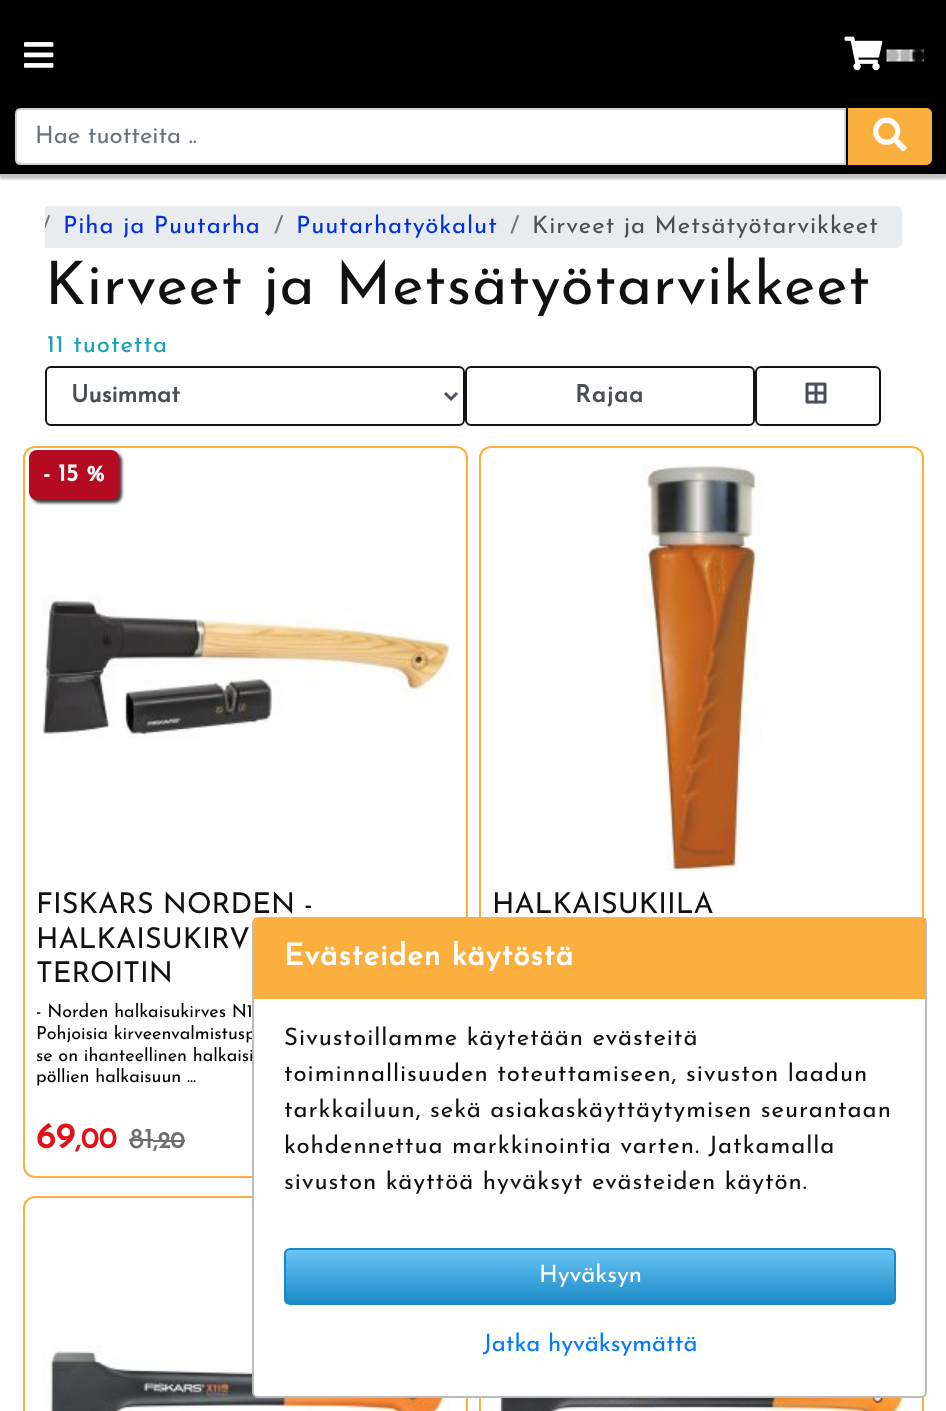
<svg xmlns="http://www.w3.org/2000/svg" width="946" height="1411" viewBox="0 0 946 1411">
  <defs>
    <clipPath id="clip1"><rect x="45" y="206" width="857" height="48"/></clipPath>
    <clipPath id="clip2"><rect x="284" y="1248" width="612" height="57" rx="6"/></clipPath>
    <linearGradient id="g1" gradientUnits="userSpaceOnUse" x1="285" y1="1250" x2="285" y2="1304"><stop offset="0" stop-color="rgb(105,196,245)"/><stop offset="1" stop-color="rgb(26,137,197)"/></linearGradient>
  </defs>
  <rect width="100%" height="100%" fill="rgb(255,255,255)"/>
  <rect x="0" y="3" width="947" height="176" fill="rgb(192,192,192)" filter="blur(1.5px)"/>
  <rect x="0" y="0" width="946" height="174" fill="rgb(0,0,0)"/>
  <rect x="0" y="174" width="946" height="2" fill="rgb(192,192,192)"/>
  <image x="24" y="42" width="30" height="26" href="pic1.png"/>
  <image x="844" y="36" width="39" height="35" href="pic2.png"/>
  <image x="886" y="49" width="38" height="13" href="pic3.png"/>
  <path d="M21 109H845V164H21C18 164 16 162 16 159V114C16 111 18 109 21 109Z" fill="rgb(255,255,255)" stroke="rgb(206,212,218)" stroke-width="2"/>
  <text x="35" y="143" font-family="Josefin Sans" font-size="24" font-weight="100" fill="rgb(108,117,125)">Hae tuotteita ..</text>
  <path d="M848 108H926C929.5 108 932 110.5 932 114V159C932 162.5 929.5 165 926 165H848Z" fill="rgb(251,175,63)"/>
  <image x="873" y="117" width="34" height="35" href="pic4.png"/>
  <path d="M45 206H896C899.5 206 902 208.5 902 212V242C902 245.5 899.5 248 896 248H45Z" fill="rgb(233,236,239)"/>
  <g clip-path="url(#clip1)">
    <text x="41" y="233" font-family="Josefin Sans" font-size="24" font-weight="100" letter-spacing="0.95" fill="rgb(108,117,125)">/</text>
  </g>
  <text x="63" y="233" font-family="Josefin Sans" font-size="24" font-weight="100" letter-spacing="0.95" fill="rgb(0,48,225)">Piha ja Puutarha</text>
  <text x="274" y="233" font-family="Josefin Sans" font-size="24" font-weight="100" letter-spacing="0.95" fill="rgb(108,117,125)">/</text>
  <text x="296" y="233" font-family="Josefin Sans" font-size="24" font-weight="100" letter-spacing="0.95" fill="rgb(0,48,225)">Puutarhatyökalut</text>
  <text x="510" y="233" font-family="Josefin Sans" font-size="24" font-weight="100" letter-spacing="0.95" fill="rgb(108,117,125)">/</text>
  <text x="532" y="233" font-family="Josefin Sans" font-size="24" font-weight="100" letter-spacing="0.95" fill="rgb(73,79,84)">Kirveet ja Metsätyötarvikkeet</text>
  <text x="45" y="304" font-family="Josefin Sans" font-size="60" font-weight="100" letter-spacing="0.95" fill="rgb(17,17,17)">Kirveet ja Metsätyötarvikkeet</text>
  <text x="47" y="352" font-family="Josefin Sans" font-size="24" font-weight="100" letter-spacing="0.95" fill="rgb(23,162,184)">11 tuotetta</text>
  <rect x="46" y="367" width="418" height="58" rx="5" fill="none" stroke="rgb(20,20,20)" stroke-width="2"/>
  <path d="M445 393L451 399L457 393" fill="none" stroke="rgb(73,80,87)" stroke-width="3"/>
  <text x="71" y="402" font-family="Josefin Sans" font-size="24" font-weight="bold" fill="rgb(73,79,84)">Uusimmat</text>
  <rect x="466" y="367" width="288" height="58" rx="5" fill="none" stroke="rgb(20,20,20)" stroke-width="2"/>
  <text x="575" y="402" font-family="Josefin Sans" font-size="24" font-weight="bold" letter-spacing="0.95" fill="rgb(73,79,84)">Rajaa</text>
  <rect x="756" y="367" width="124" height="58" rx="5" fill="none" stroke="rgb(20,20,20)" stroke-width="2"/>
  <image x="805" y="382" width="22" height="22" href="pic5.png"/>
  <rect x="24" y="447" width="443" height="730" rx="11" fill="none" stroke="rgb(251,175,63)" stroke-width="2"/>
  <rect x="32" y="453" width="90" height="50" rx="8" fill="rgba(0,0,0,0.75)" filter="blur(1.5px)"/>
  <rect x="29" y="450" width="90" height="50" rx="8" fill="rgb(181,11,34)"/>
  <text x="43" y="481" font-family="Josefin Sans" font-size="24" font-weight="bold" fill="rgb(255,255,255)">- 15 %</text>
  <text x="36" y="1148" font-family="Josefin Sans" font-size="36" font-weight="bold" fill="rgb(227,16,27)">69</text>
  <text x="75" y="1148" font-family="Josefin Sans" font-size="28.75" font-weight="bold" fill="rgb(227,16,27)">,00</text>
  <text x="129" y="1148" font-family="Josefin Sans" font-size="28.75" font-weight="100" fill="rgb(110,110,110)">81</text>
  <rect x="129" y="1139" width="24" height="2" fill="rgb(110,110,110)"/>
  <text x="153" y="1148" font-family="Josefin Sans" font-size="23" font-weight="bold" fill="rgb(110,110,110)">,20</text>
  <rect x="153" y="1140" width="32" height="2" fill="rgb(110,110,110)"/>
  <image x="42" y="595" width="408" height="144" href="pic6.png"/>
  <g font-family="Josefin Sans" font-size="28.75" font-weight="100" fill="rgb(17,17,17)">
    <text>
      <tspan x="36" y="913">FISKARS NORDEN -</tspan>
      <tspan x="36" y="948">HALKAISUKIRV</tspan>
      <tspan x="36" y="982">TEROITIN</tspan>
    </text>
  </g>
  <g font-family="Josefin Sans" font-size="18" font-weight="100" fill="rgb(0,0,0)">
    <text>
      <tspan x="36" y="1017">- Norden halkaisukirves N1</tspan>
      <tspan x="36" y="1039">Pohjoisia kirveenvalmistusp</tspan>
      <tspan x="36" y="1061">se on ihanteellinen halkaisi</tspan>
      <tspan x="36" y="1082">pöllien halkaisuun ...</tspan>
    </text>
  </g>
  <rect x="480" y="447" width="443" height="730" rx="11" fill="none" stroke="rgb(251,175,63)" stroke-width="2"/>
  <image x="642" y="463" width="120" height="409" href="pic7.png"/>
  <text x="492" y="913" font-family="Josefin Sans" font-size="28.75" font-weight="100" fill="rgb(17,17,17)">HALKAISUKIILA</text>
  <rect x="24" y="1197" width="443" height="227" rx="11" fill="none" stroke="rgb(251,175,63)" stroke-width="2"/>
  <image x="42" y="1345" width="408" height="66" href="pic8.png"/>
  <rect x="480" y="1197" width="443" height="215" fill="none" stroke="rgb(251,175,63)" stroke-width="2"/>
  <image x="498" y="1398" width="408" height="13" href="pic9.png"/>
  <rect x="253" y="918" width="673" height="479" rx="5" fill="rgb(255,255,255)" stroke="rgb(187,187,187)" stroke-width="2"/>
  <rect x="254" y="918" width="672" height="81" fill="rgb(251,175,63)"/>
  <text x="284" y="965" font-family="Josefin Sans" font-size="30" font-weight="bold" letter-spacing="0.95" fill="rgb(255,255,255)">Evästeiden käytöstä</text>
  <g font-family="Josefin Sans" font-size="24" font-weight="100" letter-spacing="0.95" fill="rgb(17,17,17)">
    <text>
      <tspan x="284" y="1045">Sivustoillamme käytetään evästeitä</tspan>
      <tspan x="284" y="1081">toiminnallisuuden toteuttamiseen, sivuston laadun</tspan>
      <tspan x="284" y="1117">tarkkailuun, sekä asiakaskäyttäytymisen seurantaan</tspan>
      <tspan x="284" y="1153">kohdennettua markkinointia varten. Jatkamalla</tspan>
      <tspan x="284" y="1189">sivuston käyttöä hyväksyt evästeiden käytön.</tspan>
    </text>
  </g>
  <g clip-path="url(#clip2)">
    <rect x="284" y="1250" width="612" height="54" fill="url(#g1)"/>
  </g>
  <rect x="285" y="1249" width="610" height="55" rx="5" fill="none" stroke="rgb(26,137,197)" stroke-width="2"/>
  <text x="539" y="1282" font-family="Josefin Sans" font-size="24" font-weight="100" fill="rgb(255,255,255)">Hyväksyn</text>
  <text x="483" y="1351" font-family="Josefin Sans" font-size="24" font-weight="100" fill="rgb(0,123,255)">Jatka hyväksymättä</text>
</svg>
